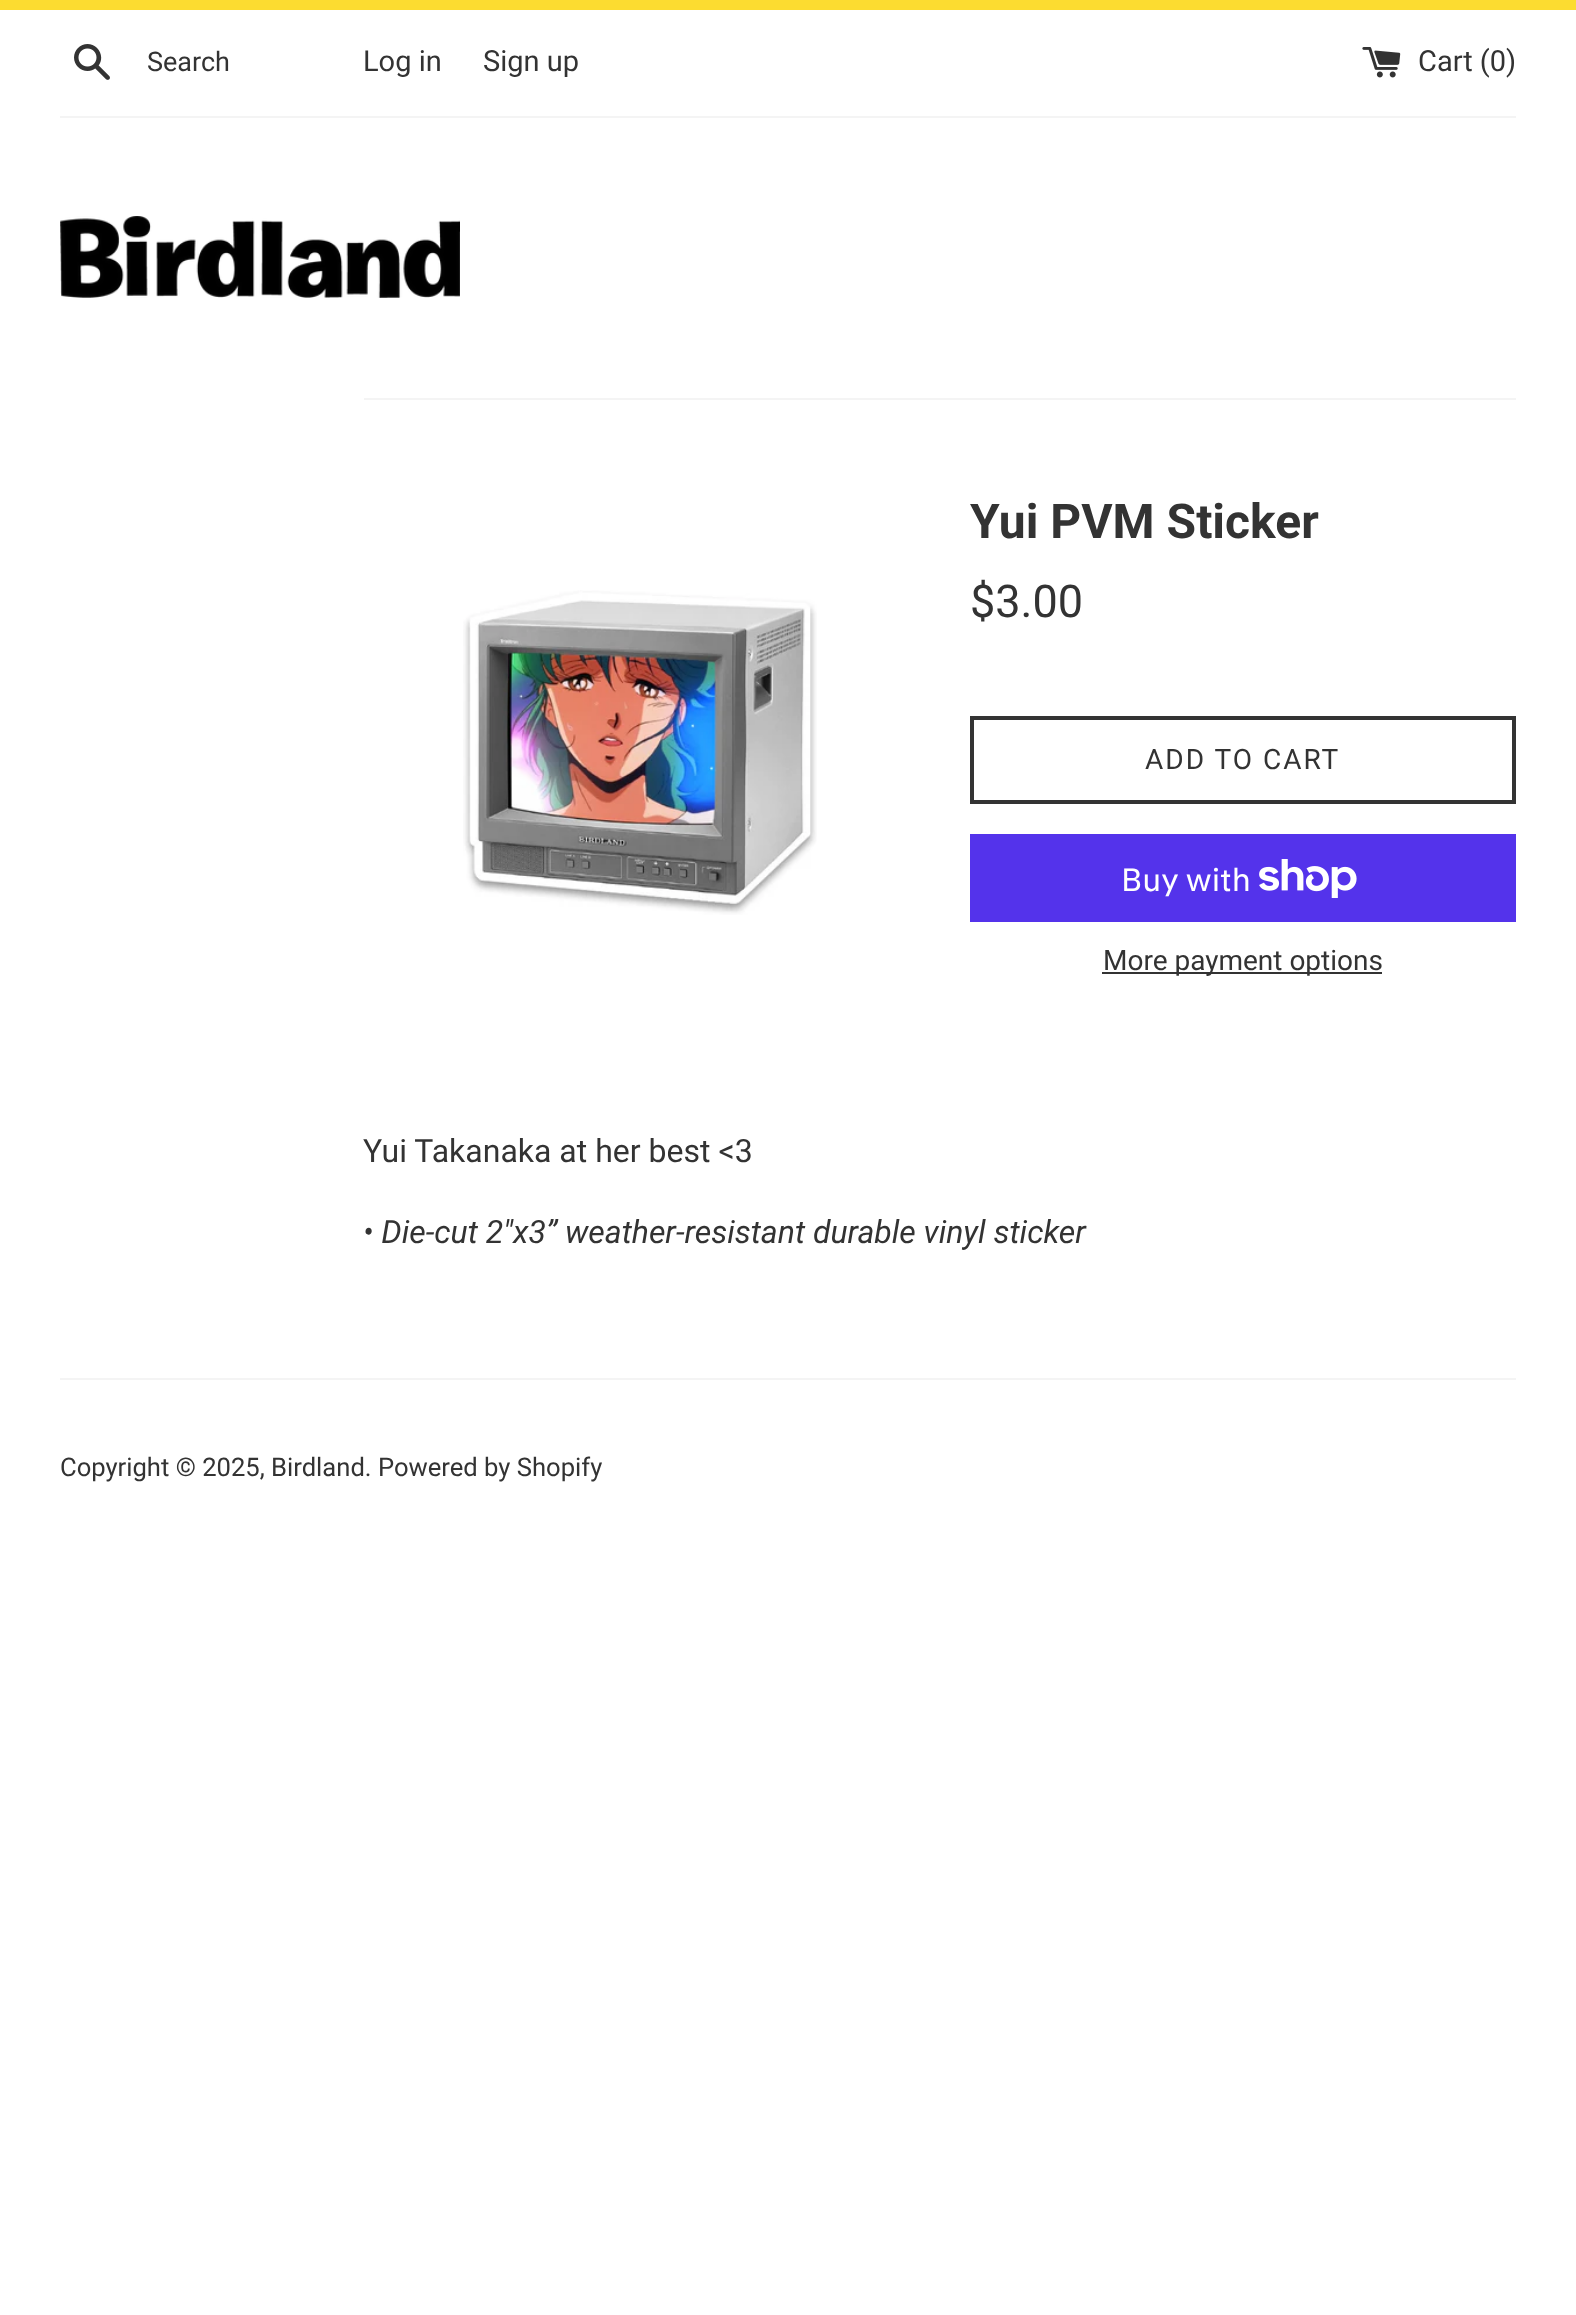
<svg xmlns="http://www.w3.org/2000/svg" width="1576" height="2315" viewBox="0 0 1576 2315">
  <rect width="100%" height="100%" fill="rgb(255,255,255)"/>
  <rect x="0" y="0" width="1576" height="10" fill="rgb(252,220,48)"/>
  <image x="74" y="44" width="36" height="36" href="pic1.png"/>
  <text x="147" y="71" font-family="Roboto" font-size="27" fill="rgb(51,51,51)">Search</text>
  <g font-family="Roboto" font-size="29" fill="rgb(51,51,51)">
    <text x="363" y="71">Log in</text>
    <text x="483" y="71">Sign up</text>
  </g>
  <image x="1362" y="47" width="39" height="31" href="pic2.png"/>
  <text x="1418" y="71" font-family="Roboto" font-size="29" fill="rgb(51,51,51)">Cart (0)</text>
  <rect x="60" y="116" width="1456" height="2" fill="rgb(244,244,244)"/>
  <image x="60" y="216" width="400" height="82" href="pic3.png"/>
  <rect x="364" y="398" width="1152" height="2" fill="rgb(244,244,244)"/>
  <image x="463" y="590" width="354" height="325" href="pic4.png"/>
  <text x="970" y="538" font-family="Roboto" font-size="48" font-weight="bold" fill="rgb(51,51,51)">Yui PVM Sticker</text>
  <text x="970" y="617" font-family="Roboto" font-size="45" fill="rgb(51,51,51)">$3.00</text>
  <rect x="972" y="718" width="542" height="84" fill="none" stroke="rgb(51,51,51)" stroke-width="4"/>
  <text x="1145" y="769" font-family="Roboto" font-size="28" letter-spacing="2" fill="rgb(51,51,51)">ADD TO CART</text>
  <rect x="970" y="834" width="546" height="88" fill="rgb(84,51,235)"/>
  <text x="1121" y="891" font-family="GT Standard" font-size="32" fill="rgb(255,255,255)">Buy with</text>
  <image x="1259" y="859" width="98" height="39" href="pic5.png"/>
  <rect x="1102" y="972" width="280" height="2" fill="rgb(51,51,51)"/>
  <text x="1103" y="970" font-family="Roboto" font-size="28" fill="rgb(51,51,51)">More payment options</text>
  <text x="363" y="1162" font-family="Roboto" font-size="32" fill="rgb(51,51,51)">Yui Takanaka at her best &lt;3</text>
  <text x="363" y="1243" font-family="Roboto" font-size="32" font-style="italic" fill="rgb(51,51,51)">• Die-cut 2"x3” weather-resistant durable vinyl sticker</text>
  <rect x="60" y="1378" width="1456" height="2" fill="rgb(244,244,244)"/>
  <text x="60" y="1476" font-family="Roboto" font-size="25.6" fill="rgb(51,51,51)">Copyright © 2025, Birdland. Powered by Shopify</text>
</svg>
